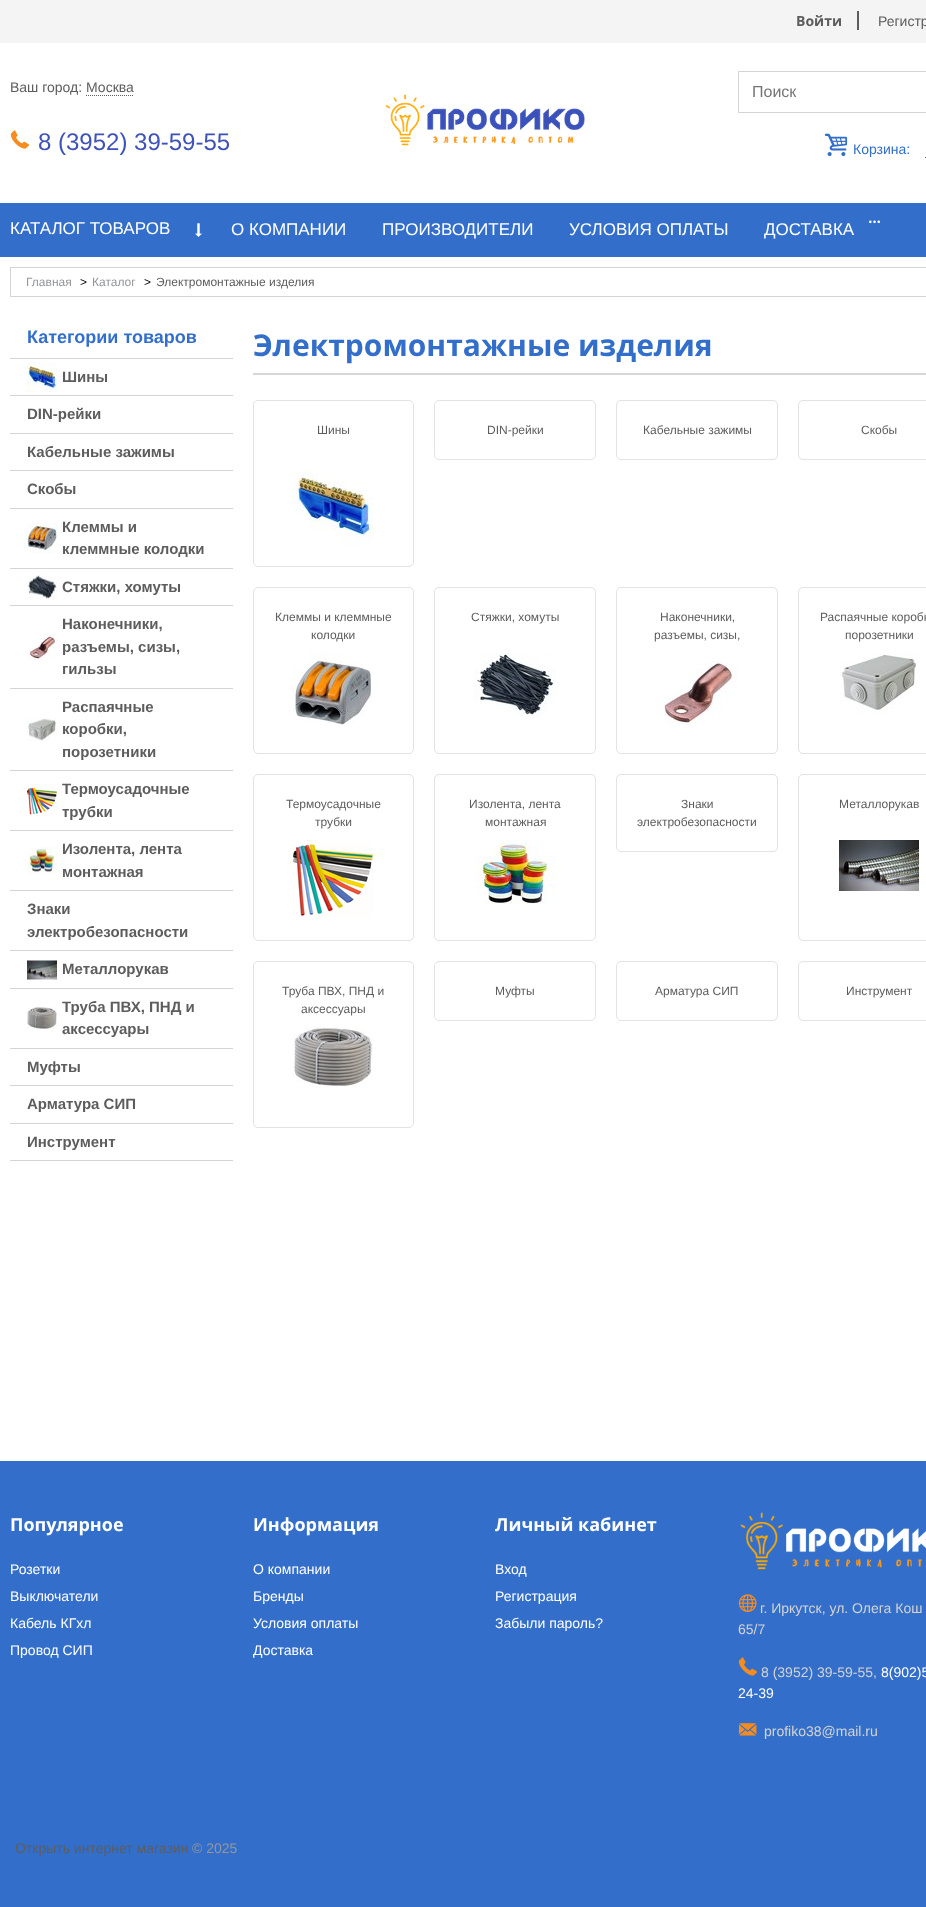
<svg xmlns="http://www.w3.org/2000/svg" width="926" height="1907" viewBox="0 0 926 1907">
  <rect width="100%" height="100%" fill="rgb(255,255,255)"/>
  <rect x="0" y="0" width="926" height="43" fill="rgb(244,244,244)"/>
  <text x="796" y="26" font-family="Open Sans" font-size="14" font-weight="bold" fill="rgb(93,93,93)">Войти</text>
  <rect x="857" y="11" width="2" height="19" fill="rgb(93,93,93)"/>
  <g font-family="Liberation Sans" font-size="14" fill="rgb(93,93,93)">
    <text x="878" y="26">Регистр</text>
    <text x="10" y="92">Ваш город: Москва</text>
  </g>
  <path d="M86 95.5H134" fill="none" stroke="rgb(93,93,93)" stroke-dasharray="1 1"/>
  <image x="10" y="130" width="19" height="19" href="pic1.png"/>
  <text x="38" y="150" font-family="Liberation Sans" font-size="24" fill="rgb(62,82,184)">8 (3952) 39-59-55</text>
  <image x="385" y="94" width="200" height="52" href="pic2.png"/>
  <rect x="738" y="71" width="188" height="1" fill="rgb(213,213,213)"/>
  <rect x="738" y="112" width="188" height="1" fill="rgb(213,213,213)"/>
  <rect x="738" y="71" width="1" height="42" fill="rgb(213,213,213)"/>
  <text x="752" y="97" font-family="Liberation Sans" font-size="16" fill="rgb(117,117,117)">Поиск</text>
  <image x="824" y="133" width="24" height="24" href="pic3.png"/>
  <text x="853" y="154" font-family="Liberation Sans" font-size="14" fill="rgb(51,111,202)">Корзина:</text>
  <rect x="925" y="157" width="1" height="1" fill="rgb(93,93,93)"/>
  <rect x="0" y="203" width="926" height="54" fill="rgb(51,111,202)"/>
  <text x="10" y="234" font-family="Liberation Sans" font-size="17" fill="rgb(255,255,255)">КАТАЛОГ ТОВАРОВ</text>
  <image x="195" y="223" width="7" height="14" href="pic4.png"/>
  <g font-family="Liberation Sans" font-size="17" fill="rgb(255,255,255)">
    <text x="231" y="235">О КОМПАНИИ</text>
    <text x="382" y="235">ПРОИЗВОДИТЕЛИ</text>
    <text x="569" y="235">УСЛОВИЯ ОПЛАТЫ</text>
    <text x="764" y="235">ДОСТАВКА</text>
  </g>
  <image x="869" y="220" width="11" height="4" href="pic5.png"/>
  <rect x="10.5" y="267.5" width="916" height="29" fill="none" stroke="rgb(213,213,213)"/>
  <text x="26" y="286" font-family="Liberation Sans" font-size="12" fill="rgb(148,150,155)">Главная</text>
  <text x="80" y="286" font-family="Liberation Sans" font-size="12" fill="rgb(0,0,0)">&gt;</text>
  <text x="92" y="286" font-family="Liberation Sans" font-size="12" fill="rgb(148,150,155)">Каталог</text>
  <text x="144" y="286" font-family="Liberation Sans" font-size="12" fill="rgb(0,0,0)">&gt;</text>
  <text x="156" y="286" font-family="Liberation Sans" font-size="12" fill="rgb(93,93,93)">Электромонтажные изделия</text>
  <rect x="10" y="358" width="223" height="1" fill="rgb(213,213,213)"/>
  <text x="27" y="343" font-family="Liberation Sans" font-size="18" font-weight="bold" fill="rgb(51,111,202)">Категории товаров</text>
  <rect x="10" y="395" width="223" height="1" fill="rgb(213,213,213)"/>
  <image x="27" y="362" width="30" height="30" href="pic6.png"/>
  <text x="62" y="382" font-family="Liberation Sans" font-size="15" font-weight="bold" fill="rgb(93,93,93)">Шины</text>
  <rect x="10" y="433" width="223" height="1" fill="rgb(213,213,213)"/>
  <text x="27" y="419" font-family="Liberation Sans" font-size="15" font-weight="bold" fill="rgb(93,93,93)">DIN-рейки</text>
  <rect x="10" y="470" width="223" height="1" fill="rgb(213,213,213)"/>
  <text x="27" y="457" font-family="Liberation Sans" font-size="15" font-weight="bold" fill="rgb(93,93,93)">Кабельные зажимы</text>
  <rect x="10" y="508" width="223" height="1" fill="rgb(213,213,213)"/>
  <text x="27" y="494" font-family="Liberation Sans" font-size="15" font-weight="bold" fill="rgb(93,93,93)">Скобы</text>
  <rect x="10" y="568" width="223" height="1" fill="rgb(213,213,213)"/>
  <image x="27" y="523" width="30" height="30" href="pic7.png"/>
  <g font-family="Liberation Sans" font-size="15" font-weight="bold" fill="rgb(93,93,93)">
    <text>
      <tspan x="62" y="532">Клеммы и</tspan>
      <tspan x="62" y="554">клеммные колодки</tspan>
    </text>
  </g>
  <rect x="10" y="605" width="223" height="1" fill="rgb(213,213,213)"/>
  <image x="27" y="575" width="30" height="24" href="pic8.png"/>
  <text x="62" y="592" font-family="Liberation Sans" font-size="15" font-weight="bold" fill="rgb(93,93,93)">Стяжки, хомуты</text>
  <rect x="10" y="688" width="223" height="1" fill="rgb(213,213,213)"/>
  <image x="27" y="633" width="30" height="28" href="pic9.png"/>
  <g font-family="Liberation Sans" font-size="15" font-weight="bold" fill="rgb(93,93,93)">
    <text>
      <tspan x="62" y="629">Наконечники,</tspan>
      <tspan x="62" y="652">разъемы, сизы,</tspan>
      <tspan x="62" y="674">гильзы</tspan>
    </text>
  </g>
  <rect x="10" y="770" width="223" height="1" fill="rgb(213,213,213)"/>
  <image x="27" y="718" width="30" height="24" href="pic10.png"/>
  <g font-family="Liberation Sans" font-size="15" font-weight="bold" fill="rgb(93,93,93)">
    <text>
      <tspan x="62" y="712">Распаячные</tspan>
      <tspan x="62" y="734">коробки,</tspan>
      <tspan x="62" y="757">порозетники</tspan>
    </text>
  </g>
  <rect x="10" y="830" width="223" height="1" fill="rgb(213,213,213)"/>
  <image x="27" y="787" width="30" height="28" href="pic11.png"/>
  <g font-family="Liberation Sans" font-size="15" font-weight="bold" fill="rgb(93,93,93)">
    <text>
      <tspan x="62" y="794">Термоусадочные</tspan>
      <tspan x="62" y="817">трубки</tspan>
    </text>
  </g>
  <rect x="10" y="890" width="223" height="1" fill="rgb(213,213,213)"/>
  <image x="27" y="847" width="30" height="28" href="pic12.png"/>
  <g font-family="Liberation Sans" font-size="15" font-weight="bold" fill="rgb(93,93,93)">
    <text>
      <tspan x="62" y="854">Изолента, лента</tspan>
      <tspan x="62" y="877">монтажная</tspan>
    </text>
  </g>
  <rect x="10" y="950" width="223" height="1" fill="rgb(213,213,213)"/>
  <g font-family="Liberation Sans" font-size="15" font-weight="bold" fill="rgb(93,93,93)">
    <text>
      <tspan x="27" y="914">Знаки</tspan>
      <tspan x="27" y="937">электробезопасности</tspan>
    </text>
  </g>
  <rect x="10" y="988" width="223" height="1" fill="rgb(213,213,213)"/>
  <image x="27" y="960" width="30" height="20" href="pic13.png"/>
  <text x="62" y="974" font-family="Liberation Sans" font-size="15" font-weight="bold" fill="rgb(93,93,93)">Металлорукав</text>
  <rect x="10" y="1048" width="223" height="1" fill="rgb(213,213,213)"/>
  <image x="27" y="1007" width="30" height="22" href="pic14.png"/>
  <g font-family="Liberation Sans" font-size="15" font-weight="bold" fill="rgb(93,93,93)">
    <text>
      <tspan x="62" y="1012">Труба ПВХ, ПНД и</tspan>
      <tspan x="62" y="1034">аксессуары</tspan>
    </text>
  </g>
  <rect x="10" y="1085" width="223" height="1" fill="rgb(213,213,213)"/>
  <text x="27" y="1072" font-family="Liberation Sans" font-size="15" font-weight="bold" fill="rgb(93,93,93)">Муфты</text>
  <rect x="10" y="1123" width="223" height="1" fill="rgb(213,213,213)"/>
  <text x="27" y="1109" font-family="Liberation Sans" font-size="15" font-weight="bold" fill="rgb(93,93,93)">Арматура СИП</text>
  <rect x="10" y="1160" width="223" height="1" fill="rgb(213,213,213)"/>
  <text x="27" y="1147" font-family="Liberation Sans" font-size="15" font-weight="bold" fill="rgb(93,93,93)">Инструмент</text>
  <rect x="253" y="373" width="673" height="2" fill="rgb(215,215,215)"/>
  <text x="253" y="356" font-family="Open Sans" font-size="30" font-weight="bold" fill="rgb(51,111,202)">Электромонтажные изделия</text>
  <rect x="253.5" y="400.5" width="160" height="166" rx="4.5" fill="none" stroke="rgb(226,227,228)"/>
  <text x="317" y="434" font-family="Liberation Sans" font-size="12" fill="rgb(93,93,93)">Шины</text>
  <image x="293" y="468" width="80" height="78" href="pic15.png"/>
  <rect x="434.5" y="400.5" width="161" height="59" rx="4.5" fill="none" stroke="rgb(226,227,228)"/>
  <text x="487" y="434" font-family="Liberation Sans" font-size="12" fill="rgb(93,93,93)">DIN-рейки</text>
  <rect x="616.5" y="400.5" width="161" height="59" rx="4.5" fill="none" stroke="rgb(226,227,228)"/>
  <text x="643" y="434" font-family="Liberation Sans" font-size="12" fill="rgb(93,93,93)">Кабельные зажимы</text>
  <rect x="798.5" y="400.5" width="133" height="59" rx="4.5" fill="none" stroke="rgb(226,227,228)"/>
  <text x="861" y="434" font-family="Liberation Sans" font-size="12" fill="rgb(93,93,93)">Скобы</text>
  <rect x="253.5" y="587.5" width="160" height="166" rx="4.5" fill="none" stroke="rgb(226,227,228)"/>
  <g font-family="Liberation Sans" font-size="12" fill="rgb(93,93,93)">
    <text x="275" y="621">Клеммы и клеммные</text>
    <text x="311" y="639">колодки</text>
  </g>
  <image x="293" y="653" width="80" height="72" href="pic16.png"/>
  <rect x="434.5" y="587.5" width="161" height="166" rx="4.5" fill="none" stroke="rgb(226,227,228)"/>
  <text x="471" y="621" font-family="Liberation Sans" font-size="12" fill="rgb(93,93,93)">Стяжки, хомуты</text>
  <image x="475" y="653" width="80" height="63" href="pic17.png"/>
  <rect x="616.5" y="587.5" width="161" height="166" rx="4.5" fill="none" stroke="rgb(226,227,228)"/>
  <g font-family="Liberation Sans" font-size="12" fill="rgb(93,93,93)">
    <text x="660" y="621">Наконечники,</text>
    <text x="654" y="639">разъемы, сизы,</text>
  </g>
  <image x="657" y="661" width="80" height="64" href="pic18.png"/>
  <rect x="798.5" y="587.5" width="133" height="166" rx="4.5" fill="none" stroke="rgb(226,227,228)"/>
  <g font-family="Liberation Sans" font-size="12" fill="rgb(93,93,93)">
    <text x="820" y="621">Распаячные коробк</text>
    <text x="845" y="639">порозетники</text>
  </g>
  <image x="840" y="653" width="79" height="61" href="pic19.png"/>
  <rect x="253.5" y="774.5" width="160" height="166" rx="4.5" fill="none" stroke="rgb(226,227,228)"/>
  <g font-family="Liberation Sans" font-size="12" fill="rgb(93,93,93)">
    <text x="286" y="808">Термоусадочные</text>
    <text x="315" y="826">трубки</text>
  </g>
  <image x="293" y="843" width="80" height="74" href="pic20.png"/>
  <rect x="434.5" y="774.5" width="161" height="166" rx="4.5" fill="none" stroke="rgb(226,227,228)"/>
  <g font-family="Liberation Sans" font-size="12" fill="rgb(93,93,93)">
    <text x="469" y="808">Изолента, лента</text>
    <text x="485" y="826">монтажная</text>
  </g>
  <image x="475" y="840" width="80" height="64" href="pic21.png"/>
  <rect x="616.5" y="774.5" width="161" height="77" rx="4.5" fill="none" stroke="rgb(226,227,228)"/>
  <g font-family="Liberation Sans" font-size="12" fill="rgb(93,93,93)">
    <text x="681" y="808">Знаки</text>
    <text x="637" y="826">электробезопасности</text>
  </g>
  <rect x="798.5" y="774.5" width="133" height="166" rx="4.5" fill="none" stroke="rgb(226,227,228)"/>
  <text x="839" y="808" font-family="Liberation Sans" font-size="12" fill="rgb(93,93,93)">Металлорукав</text>
  <image x="839" y="840" width="80" height="51" href="pic22.png"/>
  <rect x="253.5" y="961.5" width="160" height="166" rx="4.5" fill="none" stroke="rgb(226,227,228)"/>
  <g font-family="Liberation Sans" font-size="12" fill="rgb(93,93,93)">
    <text x="282" y="995">Труба ПВХ, ПНД и</text>
    <text x="301" y="1013">аксессуары</text>
  </g>
  <image x="293" y="1027" width="80" height="60" href="pic23.png"/>
  <rect x="434.5" y="961.5" width="161" height="59" rx="4.5" fill="none" stroke="rgb(226,227,228)"/>
  <text x="495" y="995" font-family="Liberation Sans" font-size="12" fill="rgb(93,93,93)">Муфты</text>
  <rect x="616.5" y="961.5" width="161" height="59" rx="4.5" fill="none" stroke="rgb(226,227,228)"/>
  <text x="655" y="995" font-family="Liberation Sans" font-size="12" fill="rgb(93,93,93)">Арматура СИП</text>
  <rect x="798.5" y="961.5" width="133" height="59" rx="4.5" fill="none" stroke="rgb(226,227,228)"/>
  <text x="846" y="995" font-family="Liberation Sans" font-size="12" fill="rgb(93,93,93)">Инструмент</text>
  <rect x="0" y="1461" width="926" height="446" fill="rgb(51,111,202)"/>
  <text x="10" y="1531" font-family="Open Sans" font-size="18" font-weight="bold" fill="rgb(255,255,255)">Популярное</text>
  <g font-family="Liberation Sans" font-size="14" fill="rgb(255,255,255)">
    <text>
      <tspan x="10" y="1574">Розетки</tspan>
      <tspan x="10" y="1601">Выключатели</tspan>
      <tspan x="10" y="1628">Кабель КГхл</tspan>
      <tspan x="10" y="1655">Провод СИП</tspan>
    </text>
  </g>
  <text x="253" y="1531" font-family="Open Sans" font-size="18" font-weight="bold" fill="rgb(255,255,255)">Информация</text>
  <g font-family="Liberation Sans" font-size="14" fill="rgb(255,255,255)">
    <text>
      <tspan x="253" y="1574">О компании</tspan>
      <tspan x="253" y="1601">Бренды</tspan>
      <tspan x="253" y="1628">Условия оплаты</tspan>
      <tspan x="253" y="1655">Доставка</tspan>
    </text>
  </g>
  <text x="495" y="1531" font-family="Open Sans" font-size="18" font-weight="bold" fill="rgb(255,255,255)">Личный кабинет</text>
  <g font-family="Liberation Sans" font-size="14" fill="rgb(255,255,255)">
    <text>
      <tspan x="495" y="1574">Вход</tspan>
      <tspan x="495" y="1601">Регистрация</tspan>
      <tspan x="495" y="1628">Забыли пароль?</tspan>
    </text>
  </g>
  <image x="740" y="1512" width="186" height="58" href="pic24.png"/>
  <image x="738" y="1594" width="19" height="18" href="pic25.png"/>
  <g font-family="Liberation Sans" font-size="14" fill="rgb(211,211,211)">
    <text x="760" y="1613">г. Иркутск, ул. Олега Кош</text>
    <text x="738" y="1634">65/7</text>
  </g>
  <image x="738" y="1657" width="19" height="19" href="pic26.png"/>
  <text x="761" y="1677" font-family="Liberation Sans" font-size="14" fill="rgb(211,211,211)">8 (3952) 39-59-55,</text>
  <g font-family="Liberation Sans" font-size="14" fill="rgb(255,255,255)">
    <text x="881" y="1677">8(902)5</text>
    <text x="738" y="1698">24-39</text>
  </g>
  <image x="738" y="1723" width="19" height="13" href="pic27.png"/>
  <text x="764" y="1736" font-family="Liberation Sans" font-size="14" fill="rgb(211,211,211)">profiko38@mail.ru</text>
  <text x="15" y="1853" font-family="Liberation Sans" font-size="14" fill="rgb(93,93,93)">Открыть интернет магазин</text>
  <text x="192" y="1853" font-family="Liberation Sans" font-size="14" fill="rgb(148,150,155)">© 2025</text>
</svg>
